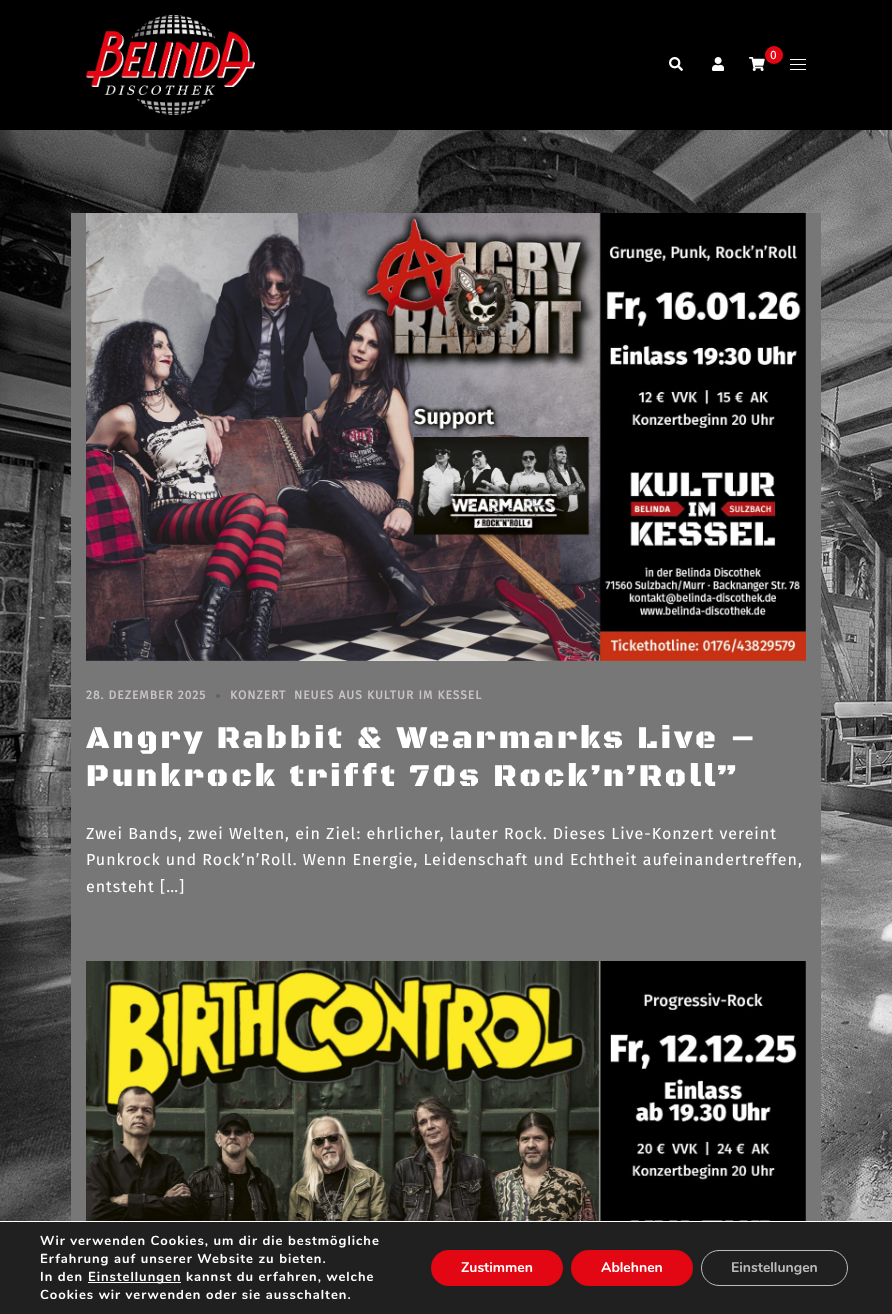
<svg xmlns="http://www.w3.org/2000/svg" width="892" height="1314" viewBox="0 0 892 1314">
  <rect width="100%" height="100%" fill="rgb(255,255,255)"/>
  <image x="0" y="130" width="892" height="1091" href="pic1.png"/>
  <rect x="0" y="0" width="892" height="130" fill="rgb(0,0,0)"/>
  <image x="86" y="15" width="169" height="100" href="pic2.png"/>
  <circle cx="774" cy="55" r="9" fill="rgb(227,6,19)"/>
  <text x="770" y="59" font-family="Fira Sans" font-size="12" letter-spacing="1" fill="rgb(255,255,255)">0</text>
  <image x="749" y="57" width="16" height="14" href="pic3.png"/>
  <image x="712" y="57" width="12" height="14" href="pic4.png"/>
  <image x="669" y="57" width="14" height="14" href="pic5.png"/>
  <rect x="790" y="59" width="16" height="1" fill="rgb(255,255,255)"/>
  <rect x="790" y="64" width="16" height="1" fill="rgb(255,255,255)"/>
  <rect x="790" y="69" width="16" height="1" fill="rgb(255,255,255)"/>
  <rect x="71" y="213" width="750" height="1008" fill="rgb(120,119,119)"/>
  <image x="86" y="213" width="720" height="448" href="pic6.png"/>
  <text x="86" y="699" font-family="Fira Sans" font-size="12" font-weight="bold" letter-spacing="1" fill="rgb(203,197,197)">28. DEZEMBER 2025</text>
  <circle cx="218" cy="696" r="2" fill="rgb(96,98,104)"/>
  <g font-family="Fira Sans" font-size="12" font-weight="bold" letter-spacing="1" fill="rgb(203,197,197)">
    <text x="230" y="699">KONZERT</text>
    <text x="294" y="699">NEUES AUS KULTUR IM KESSEL</text>
  </g>
  <g font-family="Black Ops One" font-size="32" font-weight="900" letter-spacing="3" fill="rgb(255,255,255)">
    <text>
      <tspan x="86" y="748">Angry Rabbit &amp; Wearmarks Live –</tspan>
      <tspan x="86" y="786">Punkrock trifft 70s Rock’n’Roll”</tspan>
    </text>
  </g>
  <g font-family="Fira Sans" font-size="16" letter-spacing="1" fill="rgb(255,255,255)">
    <text>
      <tspan x="86" y="839">Zwei Bands, zwei Welten, ein Ziel: ehrlicher, lauter Rock. Dieses Live-Konzert vereint</tspan>
      <tspan x="86" y="865">Punkrock und Rock’n’Roll. Wenn Energie, Leidenschaft und Echtheit aufeinandertreffen,</tspan>
      <tspan x="86" y="892">entsteht […]</tspan>
    </text>
  </g>
  <image x="86" y="961" width="720" height="260" href="pic7.png"/>
  <rect x="0" y="1222" width="892" height="92" fill="rgb(32,32,32)"/>
  <g font-family="Nunito" font-size="13" font-weight="bold" letter-spacing="1" fill="rgb(255,255,255)">
    <text>
      <tspan x="40" y="1245">Wir verwenden Cookies, um dir die bestmögliche</tspan>
      <tspan x="40" y="1263">Erfahrung auf unserer Website zu bieten.</tspan>
      <tspan x="40" y="1281">In den</tspan>
    </text>
  </g>
  <rect x="88" y="1282" width="93" height="1" fill="rgb(255,255,255)"/>
  <g font-family="Nunito" font-size="13" font-weight="bold" letter-spacing="1" fill="rgb(255,255,255)">
    <text x="88" y="1281">Einstellungen</text>
    <text x="186" y="1281">kannst du erfahren, welche</text>
    <text x="40" y="1299">Cookies wir verwenden oder sie ausschalten.</text>
  </g>
  <rect x="431" y="1250" width="132" height="36" rx="18" fill="rgb(227,6,19)"/>
  <text x="461" y="1272" font-family="Nunito" font-size="14" font-weight="bold" fill="rgb(255,255,255)">Zustimmen</text>
  <rect x="571" y="1250" width="122" height="36" rx="18" fill="rgb(227,6,19)"/>
  <text x="601" y="1272" font-family="Nunito" font-size="14" font-weight="bold" fill="rgb(255,255,255)">Ablehnen</text>
  <rect x="701.5" y="1250.5" width="146" height="35" rx="17.5" fill="none" stroke="rgb(188,188,188)"/>
  <text x="731" y="1272" font-family="Nunito" font-size="14" font-weight="bold" fill="rgb(188,188,188)">Einstellungen</text>
</svg>
